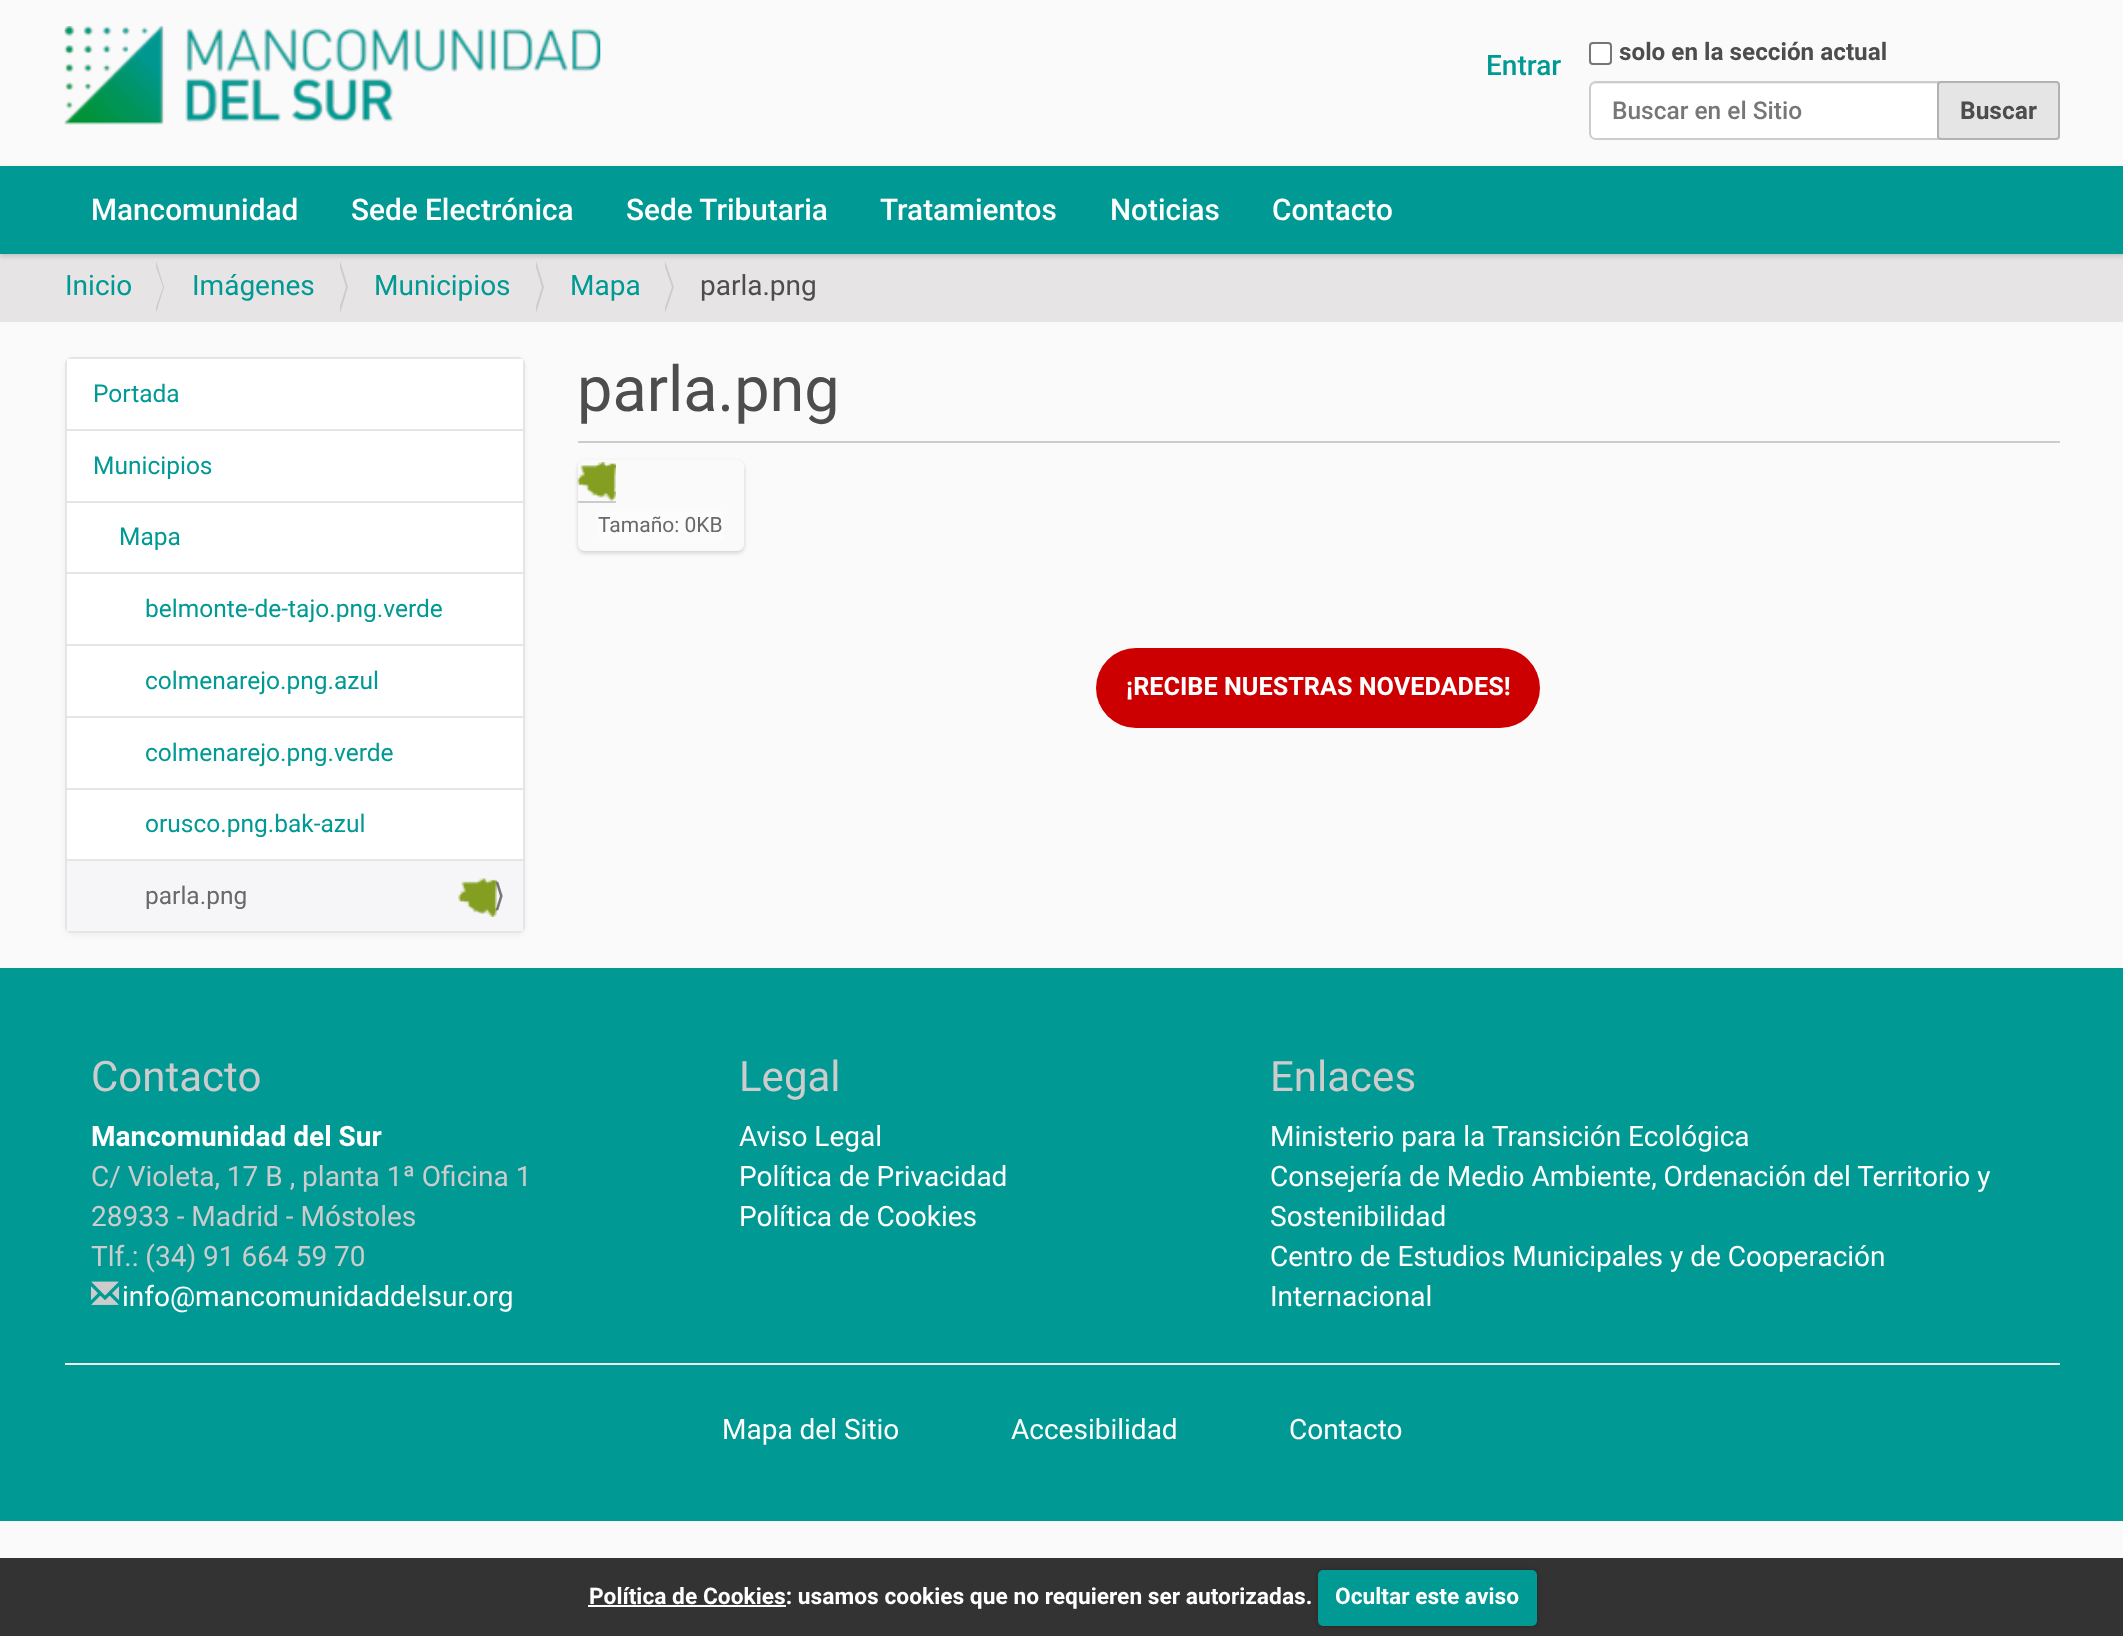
<svg xmlns="http://www.w3.org/2000/svg" width="2123" height="1636" viewBox="0 0 2123 1636">
  <defs>
    <clipPath id="clip1"><path d="M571 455H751V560H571ZM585 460H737C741 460 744 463 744 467V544C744 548 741 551 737 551H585C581 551 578 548 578 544V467C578 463 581 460 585 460Z" clip-rule="evenodd"/></clipPath>
  </defs>
  <rect width="100%" height="100%" fill="rgb(250,250,250)"/>
  <image x="64" y="26" width="537" height="99" href="pic1.png"/>
  <text x="1486" y="75" font-family="Roboto" font-size="28" font-weight="500" fill="rgb(0,153,147)">Entrar</text>
  <rect x="1590" y="43" width="21" height="21" rx="3" fill="rgb(255,255,255)" stroke="rgb(118,118,118)" stroke-width="2"/>
  <text x="1619" y="60" font-family="Roboto" font-size="24.25" font-weight="bold" fill="rgb(77,77,77)">solo en la sección actual</text>
  <path d="M1596 81H1939V140H1596C1592 140 1589 137 1589 133V88C1589 84 1592 81 1596 81Z" fill="rgb(255,255,255)"/>
  <path d="M1596 84H1937V82H1596C1592 82 1591 86 1591 89C1591 86 1593 84 1596 84Z" fill="rgb(236,236,236)"/>
  <path d="M1596 82H1938V139H1596C1592.5 139 1590 136.5 1590 133V88C1590 84.5 1592.5 82 1596 82Z" fill="none" stroke="rgb(204,204,204)" stroke-width="2"/>
  <text x="1612" y="119" font-family="Roboto" font-size="24.5" font-weight="500" fill="rgb(119,119,119)">Buscar en el Sitio</text>
  <rect x="1938" y="82" width="121" height="57" rx="3" fill="rgb(229,229,229)" stroke="rgb(178,178,178)" stroke-width="2"/>
  <text x="1960" y="119" font-family="Roboto" font-size="24.5" font-weight="bold" fill="rgb(77,77,77)">Buscar</text>
  <rect x="0" y="254" width="2123" height="68" fill="rgb(230,228,228)"/>
  <rect x="0" y="168" width="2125" height="88" fill="rgba(0,0,0,0.17)" filter="blur(2.5px)"/>
  <rect x="0" y="166" width="2123" height="88" fill="rgb(0,153,147)"/>
  <g font-family="Roboto" font-size="29.75" font-weight="500" fill="rgb(255,255,255)">
    <text x="91" y="220">Mancomunidad</text>
    <text x="351" y="220">Sede Electrónica</text>
    <text x="626" y="220">Sede Tributaria</text>
    <text x="880" y="220">Tratamientos</text>
    <text x="1110" y="220">Noticias</text>
    <text x="1272" y="220">Contacto</text>
  </g>
  <text x="65" y="295" font-family="Roboto" font-size="28" fill="rgb(0,153,147)">Inicio</text>
  <path d="M156 313V261L164 287Z" fill="rgb(204,204,204)"/>
  <path d="M154 313V261L163 287Z" fill="rgb(230,228,228)"/>
  <text x="192" y="295" font-family="Roboto" font-size="28" fill="rgb(0,153,147)">Imágenes</text>
  <path d="M340 313V261L348 287Z" fill="rgb(204,204,204)"/>
  <path d="M338 313V261L346 287Z" fill="rgb(230,228,228)"/>
  <text x="374" y="295" font-family="Roboto" font-size="28" fill="rgb(0,153,147)">Municipios</text>
  <path d="M536 313V261L544 287Z" fill="rgb(204,204,204)"/>
  <path d="M534 313V261L542 287Z" fill="rgb(230,228,228)"/>
  <text x="570" y="295" font-family="Roboto" font-size="28" fill="rgb(0,153,147)">Mapa</text>
  <path d="M665 313V261L674 287Z" fill="rgb(204,204,204)"/>
  <path d="M663 313V261L672 287Z" fill="rgb(230,228,228)"/>
  <text x="700" y="295" font-family="Roboto" font-size="28" fill="rgb(77,77,77)">parla.png</text>
  <rect x="65" y="359" width="460" height="576" rx="7" fill="rgba(0,0,0,0.05)" filter="blur(2.5px)"/>
  <rect x="66" y="358" width="458" height="574" rx="6" fill="none" stroke="rgb(229,229,229)" stroke-width="2"/>
  <rect x="67" y="359" width="456" height="500" fill="rgb(255,255,255)"/>
  <text x="93" y="402" font-family="Roboto" font-size="24.5" fill="rgb(0,153,147)">Portada</text>
  <rect x="67" y="429" width="456" height="2" fill="rgb(229,229,229)"/>
  <text x="93" y="474" font-family="Roboto" font-size="24.5" fill="rgb(0,153,147)">Municipios</text>
  <rect x="67" y="501" width="456" height="2" fill="rgb(229,229,229)"/>
  <text x="119" y="545" font-family="Roboto" font-size="24.5" fill="rgb(0,153,147)">Mapa</text>
  <rect x="67" y="572" width="456" height="2" fill="rgb(229,229,229)"/>
  <text x="145" y="617" font-family="Roboto" font-size="24.5" fill="rgb(0,153,147)">belmonte-de-tajo.png.verde</text>
  <rect x="67" y="644" width="456" height="2" fill="rgb(229,229,229)"/>
  <text x="145" y="689" font-family="Roboto" font-size="24.5" fill="rgb(0,153,147)">colmenarejo.png.azul</text>
  <rect x="67" y="716" width="456" height="2" fill="rgb(229,229,229)"/>
  <text x="145" y="761" font-family="Roboto" font-size="24.5" fill="rgb(0,153,147)">colmenarejo.png.verde</text>
  <rect x="67" y="788" width="456" height="2" fill="rgb(229,229,229)"/>
  <text x="145" y="832" font-family="Roboto" font-size="24.5" fill="rgb(0,153,147)">orusco.png.bak-azul</text>
  <rect x="67" y="861" width="456" height="70" fill="rgb(246,246,249)"/>
  <rect x="67" y="859" width="456" height="2" fill="rgb(229,229,229)"/>
  <text x="145" y="904" font-family="Roboto" font-size="24.5" fill="rgb(105,105,105)">parla.png</text>
  <image x="458" y="878" width="39" height="39" href="pic2.png"/>
  <text x="493" y="906" font-family="DejaVu Sans" font-size="32" fill="rgb(119,119,119)">⟩</text>
  <rect x="578" y="441" width="1482" height="2" fill="rgb(204,204,204)"/>
  <text x="577" y="411" font-family="Roboto" font-size="63" fill="rgb(77,77,77)">parla.png</text>
  <g clip-path="url(#clip1)">
    <rect x="578" y="462" width="166" height="91" rx="7" fill="rgba(0,0,0,0.17)" filter="blur(2px)"/>
  </g>
  <rect x="578" y="501" width="38" height="2" fill="rgb(204,204,204)"/>
  <image x="577" y="462" width="39" height="39" href="pic3.png"/>
  <rect x="599" y="511" width="124" height="30" fill="rgb(252,252,253)"/>
  <text x="598" y="532" font-family="Roboto" font-size="21" fill="rgb(105,105,105)">Tamaño: 0KB</text>
  <rect x="1096" y="648" width="444" height="80" rx="40" fill="rgb(204,0,0)"/>
  <text x="1126" y="695" font-family="Roboto" font-size="25.25" font-weight="bold" fill="rgb(255,255,255)">¡RECIBE NUESTRAS NOVEDADES!</text>
  <rect x="0" y="968" width="2123" height="553" fill="rgb(0,153,147)"/>
  <text x="91" y="1091" font-family="Roboto" font-size="42" fill="rgb(204,204,204)">Contacto</text>
  <text x="91" y="1146" font-family="Roboto" font-size="28" font-weight="bold" fill="rgb(255,255,255)">Mancomunidad del Sur</text>
  <g font-family="Roboto" font-size="28" fill="rgb(204,204,204)">
    <text>
      <tspan x="91" y="1186">C/ Violeta, 17 B , planta 1ª Oficina 1</tspan>
      <tspan x="91" y="1226">28933 - Madrid - Móstoles</tspan>
      <tspan x="91" y="1266">Tlf.: (34) 91 664 59 70</tspan>
    </text>
  </g>
  <image x="91" y="1281" width="28" height="24" href="pic4.png"/>
  <text x="122" y="1306" font-family="Roboto" font-size="28" fill="rgb(255,255,255)">info@mancomunidaddelsur.org</text>
  <text x="739" y="1091" font-family="Roboto" font-size="42" fill="rgb(204,204,204)">Legal</text>
  <g font-family="Roboto" font-size="28" fill="rgb(255,255,255)">
    <text>
      <tspan x="739" y="1146">Aviso Legal</tspan>
      <tspan x="739" y="1186">Política de Privacidad</tspan>
      <tspan x="739" y="1226">Política de Cookies</tspan>
    </text>
  </g>
  <text x="1270" y="1091" font-family="Roboto" font-size="42" fill="rgb(204,204,204)">Enlaces</text>
  <g font-family="Roboto" font-size="28" fill="rgb(255,255,255)">
    <text>
      <tspan x="1270" y="1146">Ministerio para la Transición Ecológica</tspan>
      <tspan x="1270" y="1186">Consejería de Medio Ambiente, Ordenación del Territorio y</tspan>
      <tspan x="1270" y="1226">Sostenibilidad</tspan>
      <tspan x="1270" y="1266">Centro de Estudios Municipales y de Cooperación</tspan>
      <tspan x="1270" y="1306">Internacional</tspan>
    </text>
  </g>
  <rect x="65" y="1363" width="1995" height="2" fill="rgb(237,237,237)"/>
  <g font-family="Roboto" font-size="28" fill="rgb(255,255,255)">
    <text x="722" y="1439">Mapa del Sitio</text>
    <text x="1011" y="1439">Accesibilidad</text>
    <text x="1289" y="1439">Contacto</text>
  </g>
  <rect x="0" y="1558" width="2123" height="78" fill="rgb(51,51,51)"/>
  <rect x="588" y="1605" width="198" height="2" fill="rgb(255,255,255)"/>
  <text x="589" y="1604" font-family="Roboto" font-size="22.75" font-weight="bold" fill="rgb(255,255,255)">Política de Cookies: usamos cookies que no requieren ser autorizadas.</text>
  <rect x="1318" y="1570" width="219" height="56" rx="5" fill="rgba(0,0,0,0.25)" filter="blur(2px)"/>
  <rect x="1318" y="1570" width="219" height="56" rx="5" fill="rgb(0,153,147)"/>
  <text x="1335" y="1604" font-family="Roboto" font-size="22.75" font-weight="bold" fill="rgb(255,255,255)">Ocultar este aviso</text>
</svg>
